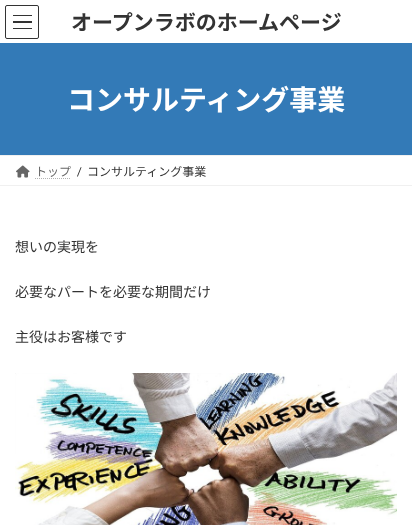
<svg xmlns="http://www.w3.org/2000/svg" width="412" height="525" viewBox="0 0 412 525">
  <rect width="100%" height="100%" fill="rgb(255,255,255)"/>
  <rect x="13" y="15" width="19" height="1" fill="rgb(51,51,51)"/>
  <rect x="13" y="21" width="19" height="2" fill="rgb(51,51,51)"/>
  <rect x="13" y="28" width="19" height="1" fill="rgb(51,51,51)"/>
  <rect x="5.5" y="5.5" width="33" height="33" rx="1.5" fill="none" stroke="rgb(51,51,51)"/>
  <text x="71" y="30" font-family="Noto Sans JP" font-size="21" font-weight="bold" fill="rgb(51,51,51)">オープンラボのホームページ</text>
  <rect x="0" y="43" width="412" height="112" fill="rgb(51,122,183)"/>
  <text x="67" y="110" font-family="Noto Sans JP" font-size="28" font-weight="bold" fill="rgb(255,255,255)">コンサルティング事業</text>
  <rect x="0" y="155" width="412" height="1" fill="rgb(240,240,240)"/>
  <rect x="0" y="185" width="412" height="1" fill="rgb(240,240,240)"/>
  <image x="16" y="165" width="14" height="13" href="pic1.png"/>
  <text x="35" y="176" font-family="Noto Sans JP" font-size="12" fill="rgb(102,102,102)">トップ</text>
  <path d="M35 178.5H71" fill="none" stroke="rgb(179,179,179)" stroke-dasharray="1 1"/>
  <text x="77" y="176" font-family="Lato" font-size="12" fill="rgb(51,51,51)">/</text>
  <text x="87" y="176" font-family="Noto Sans JP" font-size="12" fill="rgb(51,51,51)">コンサルティング事業</text>
  <g font-family="Noto Sans JP" font-size="14" fill="rgb(51,51,51)">
    <text x="15" y="252">想いの実現を</text>
    <text x="15" y="297">必要なパートを必要な期間だけ</text>
    <text x="15" y="342">主役はお客様です</text>
  </g>
  <image x="15" y="373" width="382" height="152" href="pic2.png"/>
</svg>
